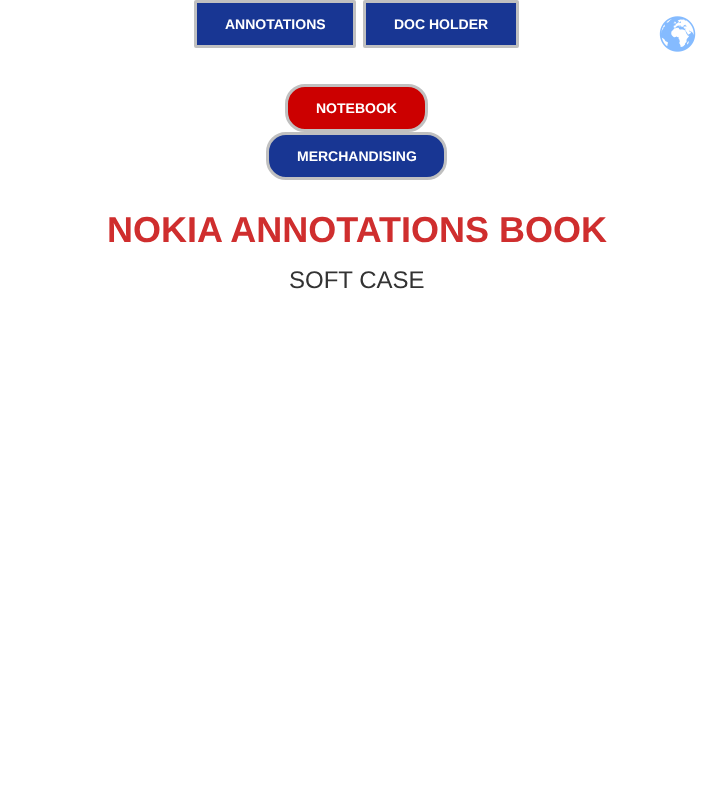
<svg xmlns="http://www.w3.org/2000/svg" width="713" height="790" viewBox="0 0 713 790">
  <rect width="100%" height="100%" fill="rgb(255,255,255)"/>
  <rect x="195.5" y="1.5" width="159" height="45" rx="0.5" fill="rgb(24,54,147)" stroke="rgb(192,192,192)" stroke-width="3"/>
  <text x="225" y="29" font-family="Liberation Sans" font-size="14" font-weight="bold" fill="rgb(255,255,255)">ANNOTATIONS</text>
  <rect x="364.5" y="1.5" width="153" height="45" rx="0.5" fill="rgb(24,54,147)" stroke="rgb(192,192,192)" stroke-width="3"/>
  <text x="394" y="29" font-family="Liberation Sans" font-size="14" font-weight="bold" fill="rgb(255,255,255)">DOC HOLDER</text>
  <rect x="286.5" y="85.5" width="140" height="45" rx="18.5" fill="rgb(204,0,0)" stroke="rgb(192,192,192)" stroke-width="3"/>
  <text x="316" y="113" font-family="Liberation Sans" font-size="14" font-weight="bold" fill="rgb(255,255,255)">NOTEBOOK</text>
  <rect x="267.5" y="133.5" width="178" height="45" rx="18.5" fill="rgb(24,54,147)" stroke="rgb(192,192,192)" stroke-width="3"/>
  <text x="297" y="161" font-family="Liberation Sans" font-size="14" font-weight="bold" fill="rgb(255,255,255)">MERCHANDISING</text>
  <image x="659" y="16" width="37" height="36" href="pic1.png"/>
  <text x="107" y="242" font-family="Liberation Sans" font-size="36" font-weight="bold" fill="rgb(207,46,46)">NOKIA ANNOTATIONS BOOK</text>
  <text x="289" y="288" font-family="Liberation Sans" font-size="24" fill="rgb(51,51,51)">SOFT CASE</text>
</svg>
